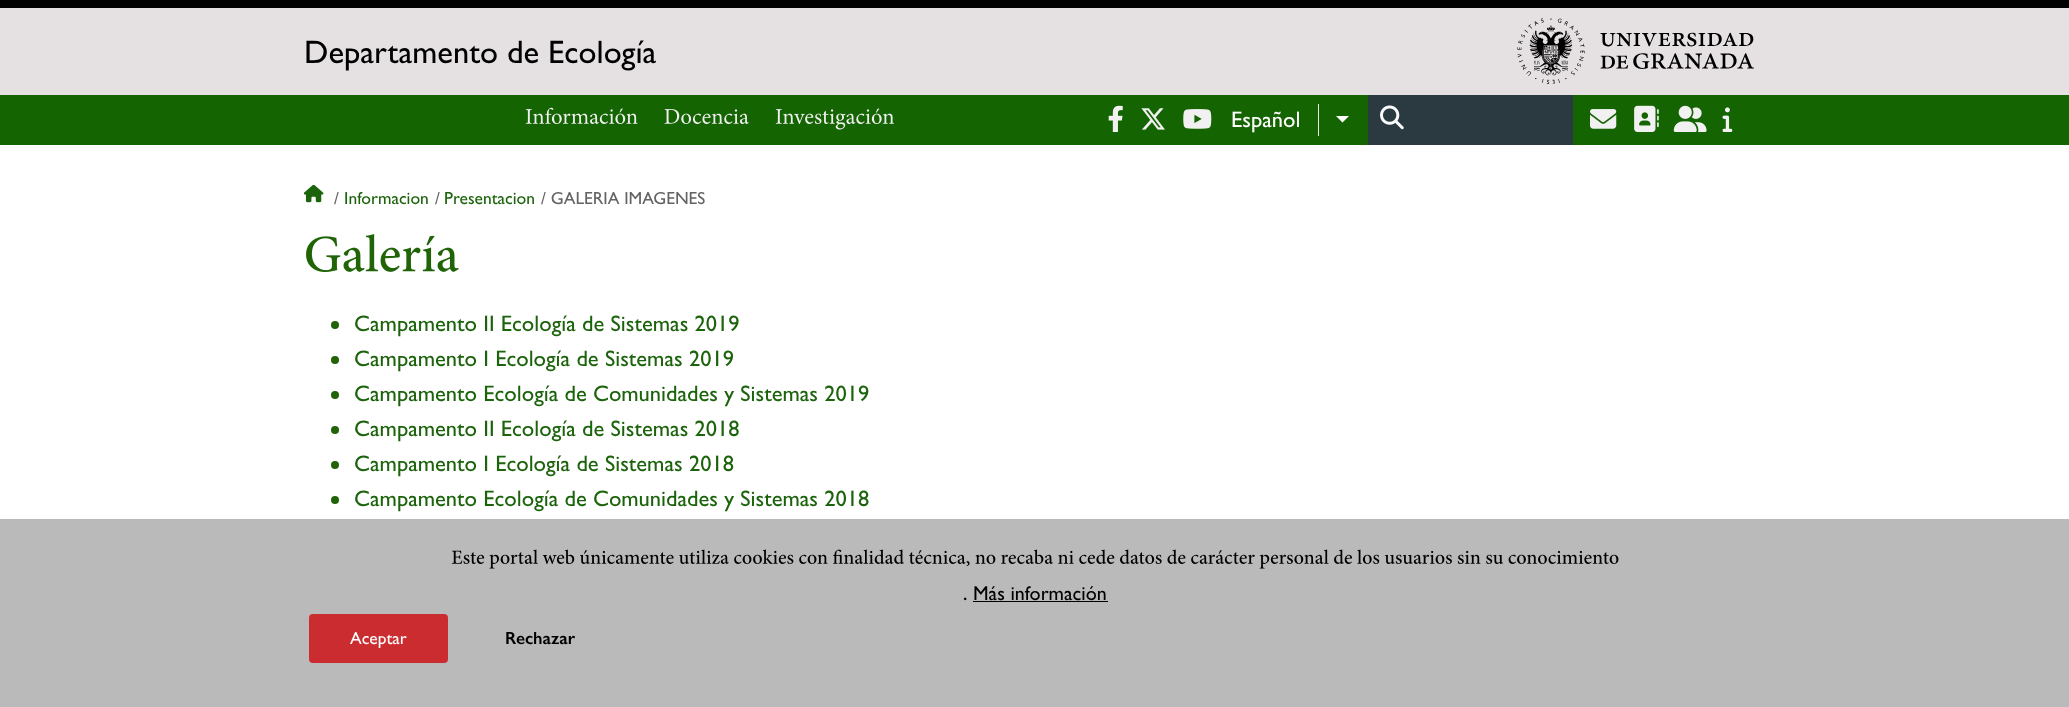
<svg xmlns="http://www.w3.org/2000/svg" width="2069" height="707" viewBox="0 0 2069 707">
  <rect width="100%" height="100%" fill="rgb(255,255,255)"/>
  <rect x="0" y="0" width="2069" height="8" fill="rgb(1,1,1)"/>
  <rect x="0" y="95" width="2069" height="50" fill="rgb(20,100,2)"/>
  <rect x="0" y="8" width="2069" height="87" fill="rgb(229,225,226)"/>
  <text x="304" y="63" font-family="Gill Sans" font-size="32.5" fill="rgb(0,0,0)">Departamento de Ecología</text>
  <image x="1517" y="18" width="237" height="66" href="pic1.png"/>
  <image x="525" y="107" width="113" height="17" href="pic2.png"/>
  <image x="664" y="109" width="85" height="15" href="pic3.png"/>
  <image x="775" y="108" width="119" height="22" href="pic4.png"/>
  <image x="1108" y="105" width="15" height="27" href="pic5.png"/>
  <image x="1141" y="108" width="24" height="22" href="pic6.png"/>
  <image x="1183" y="109" width="29" height="20" href="pic7.png"/>
  <rect x="1318" y="104" width="1" height="32" fill="rgb(232,232,232)"/>
  <text x="1231" y="127" font-family="Gill Sans" font-size="22.5" fill="rgb(255,255,255)">Español</text>
  <path d="M1336 116H1349L1342.5 122.5Z" fill="rgb(255,255,255)"/>
  <rect x="1368" y="95" width="205" height="50" fill="rgb(43,58,65)"/>
  <image x="1380" y="105" width="24" height="25" href="pic8.png"/>
  <image x="1590" y="109" width="27" height="20" href="pic9.png"/>
  <image x="1634" y="105" width="25" height="27" href="pic10.png"/>
  <image x="1673" y="105" width="34" height="27" href="pic11.png"/>
  <image x="1722" y="107" width="11" height="25" href="pic12.png"/>
  <image x="304" y="185" width="20" height="18" href="pic13.png"/>
  <text x="334" y="204" font-family="Gill Sans" font-size="17.5" fill="rgb(101,98,98)">/</text>
  <text x="344" y="204" font-family="Gill Sans" font-size="17.5" fill="rgb(28,100,12)">Informacion</text>
  <text x="435" y="204" font-family="Gill Sans" font-size="17.5" fill="rgb(101,98,98)">/</text>
  <text x="444" y="204" font-family="Gill Sans" font-size="17.5" fill="rgb(28,100,12)">Presentacion</text>
  <text x="541" y="204" font-family="Gill Sans" font-size="17.5" fill="rgb(101,98,98)">/ GALERIA IMAGENES</text>
  <image x="306" y="234" width="153" height="38" href="pic14.png"/>
  <circle cx="335" cy="325" r="4" fill="rgb(33,100,7)"/>
  <text x="354" y="331" font-family="Gill Sans" font-size="22.5" fill="rgb(28,100,12)">Campamento II Ecología de Sistemas 2019</text>
  <circle cx="335" cy="360" r="4" fill="rgb(33,100,7)"/>
  <text x="354" y="366" font-family="Gill Sans" font-size="22.5" fill="rgb(28,100,12)">Campamento I Ecología de Sistemas 2019</text>
  <circle cx="335" cy="395" r="4" fill="rgb(33,100,7)"/>
  <text x="354" y="401" font-family="Gill Sans" font-size="22.5" fill="rgb(28,100,12)">Campamento Ecología de Comunidades y Sistemas 2019</text>
  <circle cx="335" cy="430" r="4" fill="rgb(33,100,7)"/>
  <text x="354" y="436" font-family="Gill Sans" font-size="22.5" fill="rgb(28,100,12)">Campamento II Ecología de Sistemas 2018</text>
  <circle cx="335" cy="465" r="4" fill="rgb(33,100,7)"/>
  <text x="354" y="471" font-family="Gill Sans" font-size="22.5" fill="rgb(28,100,12)">Campamento I Ecología de Sistemas 2018</text>
  <circle cx="335" cy="500" r="4" fill="rgb(33,100,7)"/>
  <text x="354" y="506" font-family="Gill Sans" font-size="22.5" fill="rgb(28,100,12)">Campamento Ecología de Comunidades y Sistemas 2018</text>
  <rect x="0" y="519" width="2069" height="188" fill="rgb(186,186,186)"/>
  <image x="451" y="549" width="1168" height="20" href="pic15.png"/>
  <text x="963" y="600" font-family="Gill Sans" font-size="17.5" font-weight="600" fill="rgb(0,0,0)">.</text>
  <text x="973" y="600" font-family="Gill Sans" font-size="20" fill="rgb(0,0,0)">Más información</text>
  <rect x="973" y="601" width="135" height="1" fill="rgb(0,0,0)"/>
  <rect x="309" y="614" width="139" height="49" rx="4" fill="rgb(203,44,48)"/>
  <text x="350" y="644" font-family="Gill Sans" font-size="17.5" fill="rgb(255,255,255)">Aceptar</text>
  <text x="505" y="644" font-family="Gill Sans" font-size="17.5" font-weight="600" fill="rgb(0,0,0)">Rechazar</text>
</svg>
